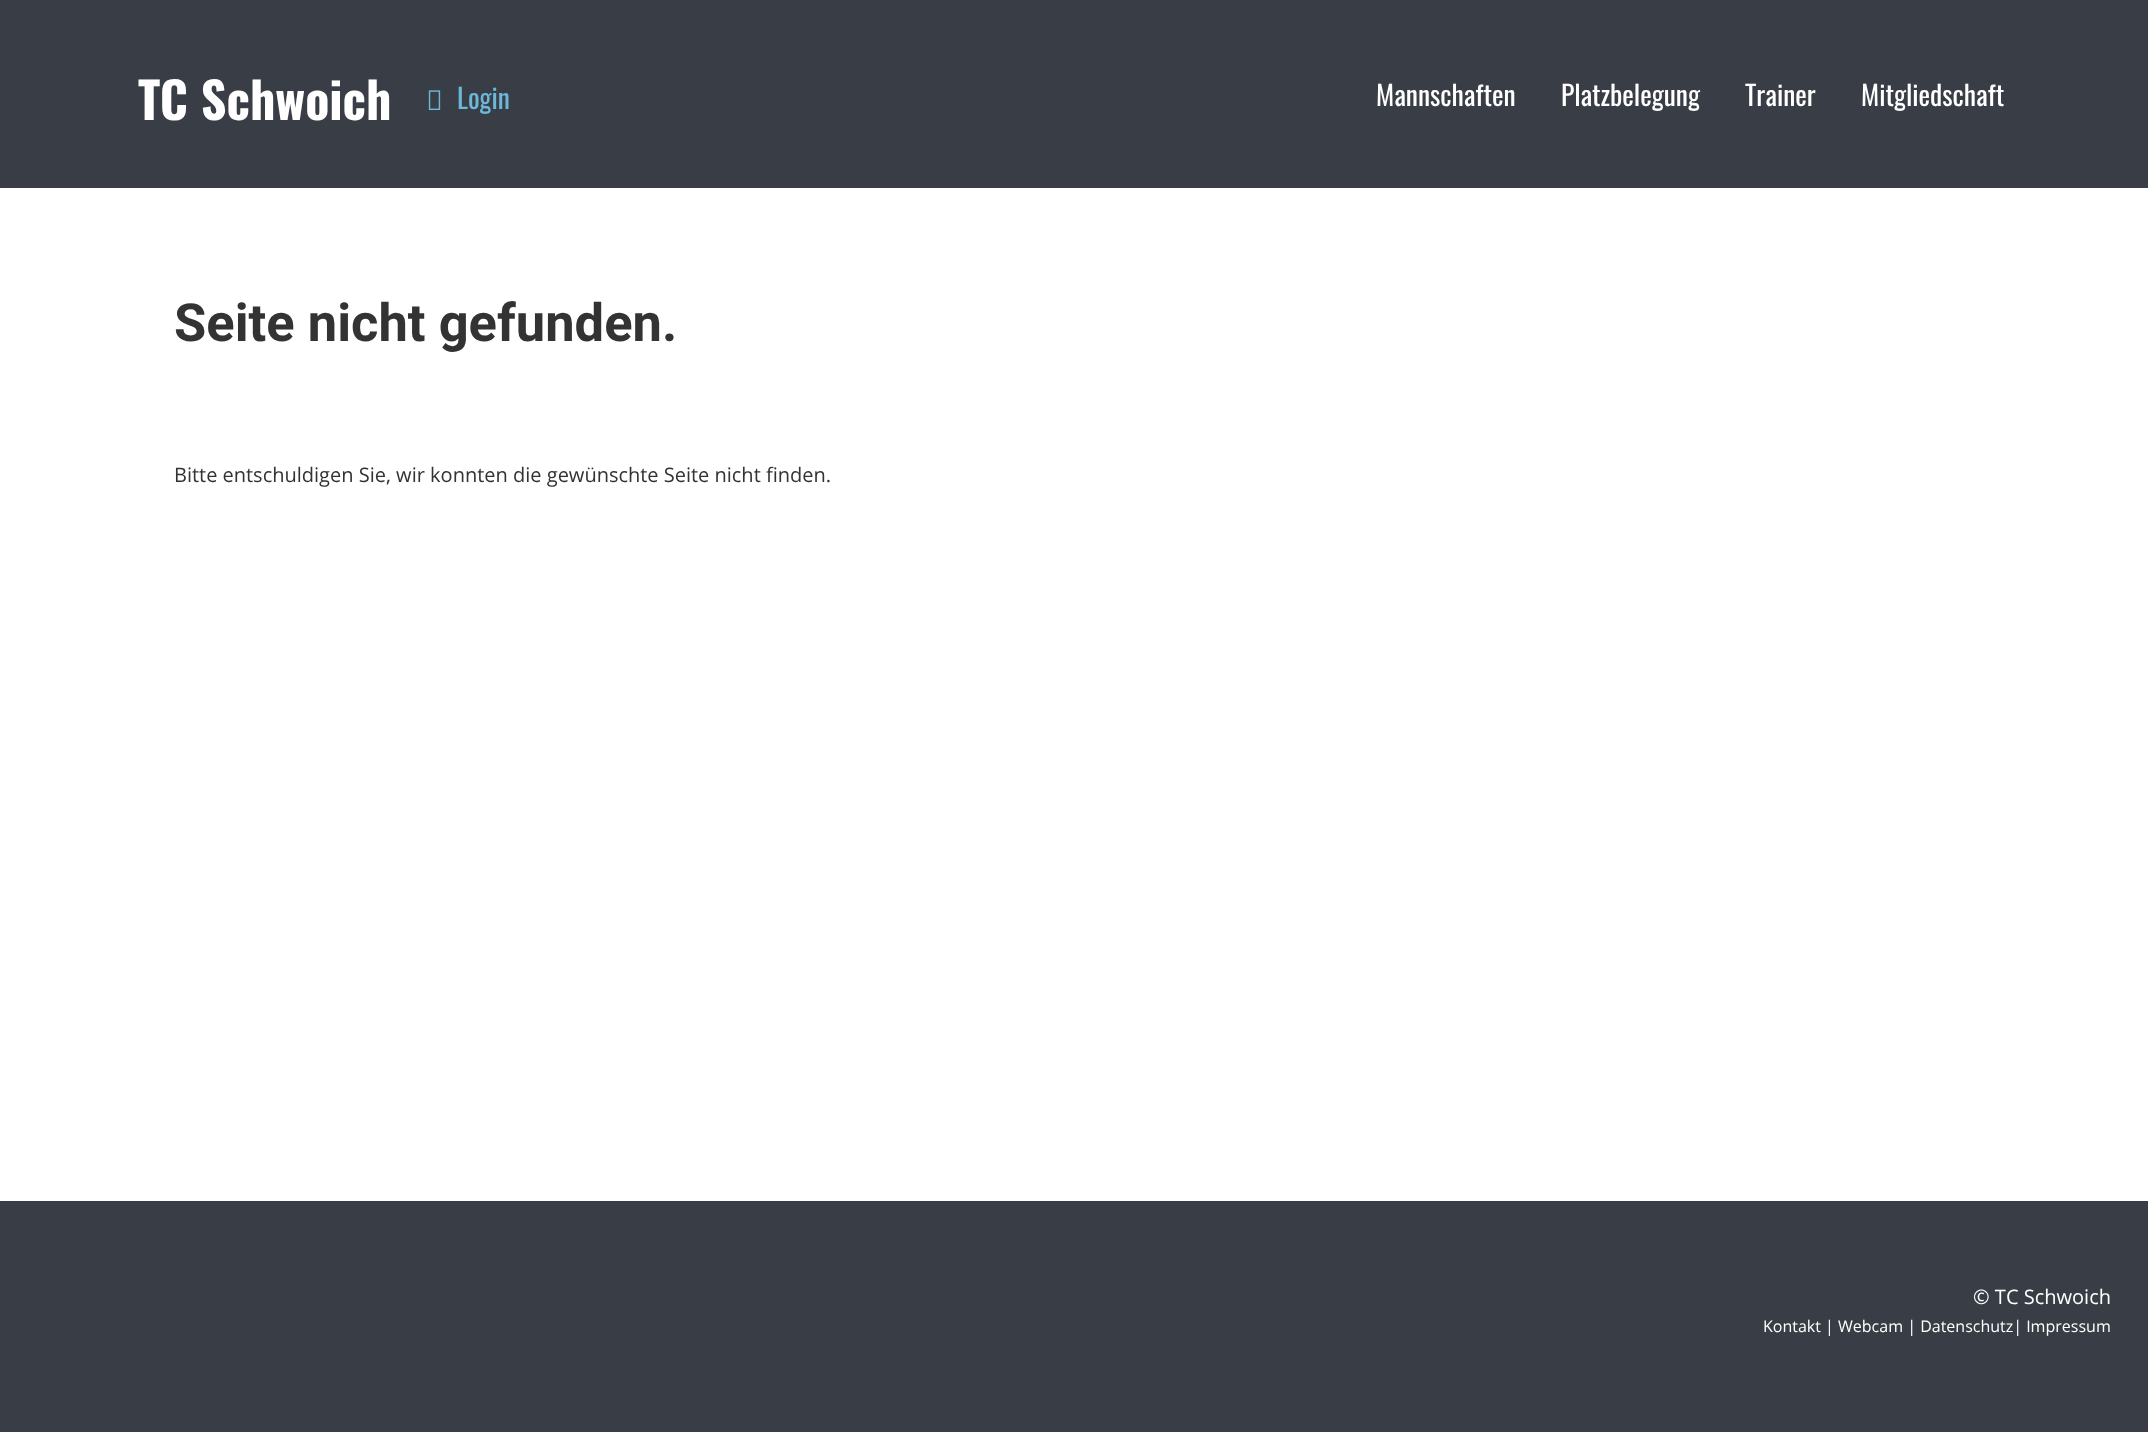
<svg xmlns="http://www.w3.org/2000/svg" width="2148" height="1432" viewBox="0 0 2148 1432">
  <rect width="100%" height="100%" fill="rgb(255,255,255)"/>
  <rect x="0" y="0" width="2148" height="188" fill="rgb(57,62,70)"/>
  <text x="138" y="120" font-family="Oswald" font-size="50" font-weight="bold" fill="rgb(255,255,255)">TC Schwoich</text>
  <image x="428" y="90" width="13" height="20" href="pic1.png"/>
  <text x="457" y="109" font-family="Oswald" font-size="27.5" fill="rgb(109,183,217)">Login</text>
  <g font-family="Oswald" font-size="27.5" fill="rgb(255,255,255)">
    <text x="1376" y="106">Mannschaften</text>
    <text x="1561" y="106">Platzbelegung</text>
    <text x="1745" y="106">Trainer</text>
    <text x="1861" y="106">Mitgliedschaft</text>
  </g>
  <text x="174" y="341" font-family="Roboto" font-size="52.5" font-weight="bold" fill="rgb(51,51,51)">Seite nicht gefunden.</text>
  <text x="174" y="482" font-family="Open Sans" font-size="20" fill="rgb(51,51,51)">Bitte entschuldigen Sie, wir konnten die gewünschte Seite nicht finden.</text>
  <rect x="0" y="1201" width="2148" height="231" fill="rgb(57,62,70)"/>
  <text x="1973" y="1304" font-family="Open Sans" font-size="20" fill="rgb(255,255,255)">© TC Schwoich</text>
  <text x="1763" y="1332" font-family="Open Sans" font-size="16" fill="rgb(255,255,255)">Kontakt | Webcam | Datenschutz| Impressum</text>
</svg>
